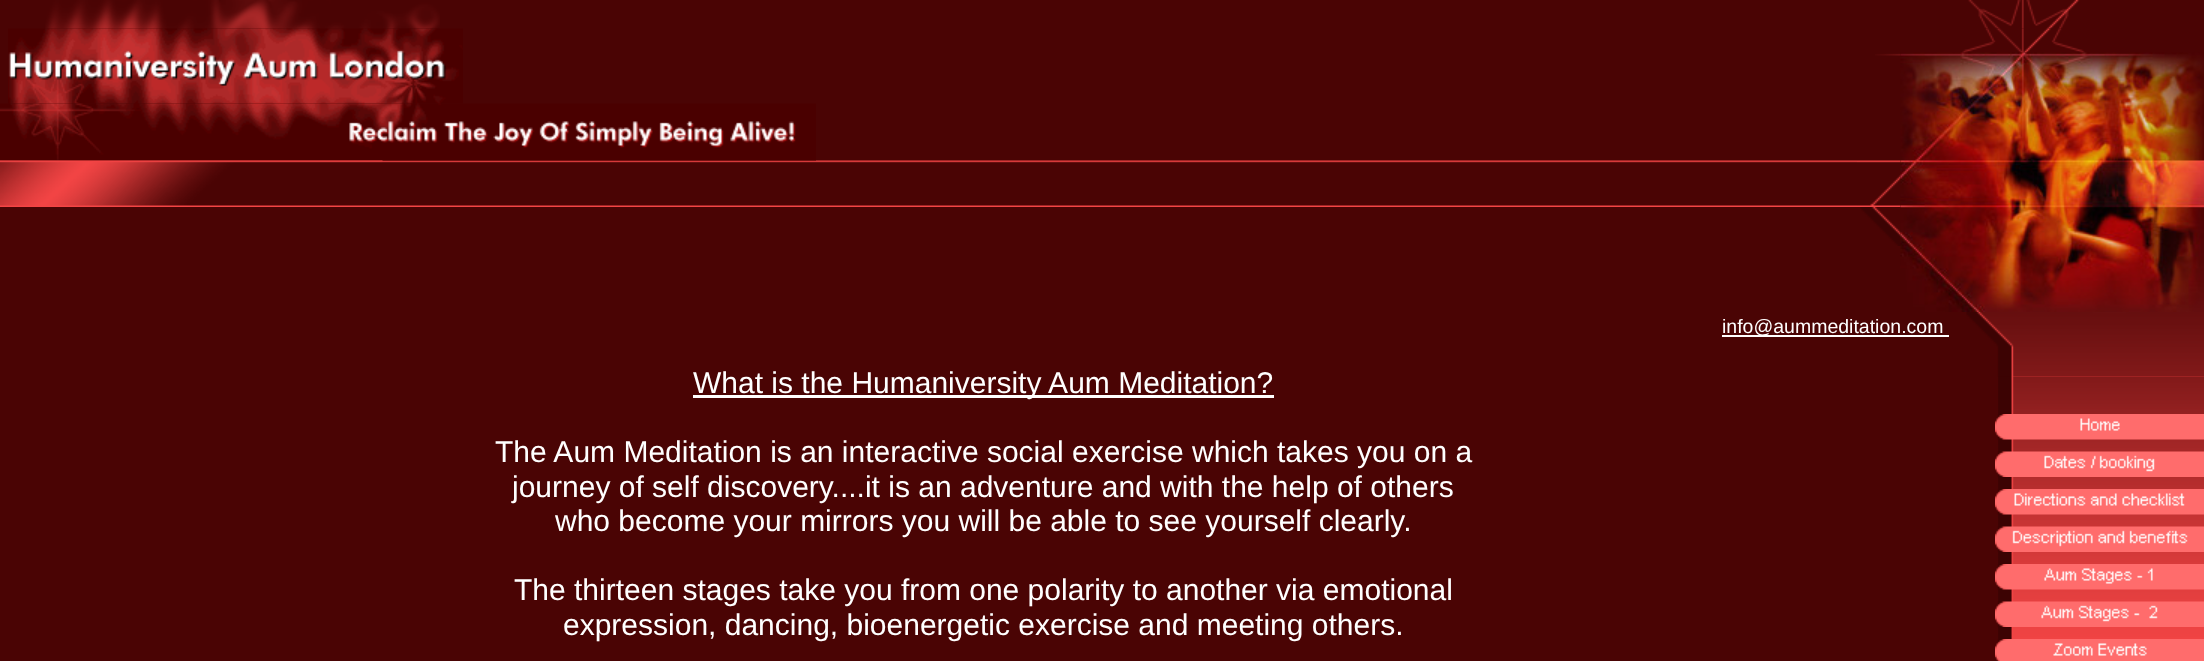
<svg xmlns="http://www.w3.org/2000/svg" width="2204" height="661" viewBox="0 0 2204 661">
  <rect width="100%" height="100%" fill="rgb(74,4,4)"/>
  <image x="45" y="0" width="395" height="29" href="pic1.png"/>
  <image x="1968" y="0" width="112" height="29" href="pic2.png"/>
  <image x="8" y="28" width="455" height="76" href="pic3.png"/>
  <image x="1875" y="53" width="26" height="3" href="pic4.png"/>
  <image x="0" y="160" width="1857" height="47" href="pic6.png"/>
  <image x="0" y="103" width="816" height="58" href="pic5.png"/>
  <image x="0" y="160" width="383" height="46" href="pic7.png"/>
  <image x="1857" y="160" width="44" height="47" href="pic8.png"/>
  <image x="1860" y="207" width="41" height="39" href="pic9.png"/>
  <image x="1962" y="28" width="123" height="25" href="pic10.png"/>
  <image x="1900" y="52" width="304" height="260" href="pic11.png"/>
  <rect x="1722" y="335" width="227" height="2" fill="rgb(255,255,255)"/>
  <text x="1722" y="333" font-family="Liberation Sans" font-size="19.5" fill="rgb(255,255,255)">info@aummeditation.com</text>
  <rect x="693" y="395" width="581" height="3" fill="rgb(255,255,255)"/>
  <g font-family="Liberation Sans" font-size="30" fill="rgb(255,255,255)">
    <text x="693" y="393">What is the Humaniversity Aum Meditation?</text>
    <text x="495" y="462">The Aum Meditation is an interactive social exercise which takes you on a</text>
    <text x="512" y="497">journey of self discovery....it is an adventure and with the help of others</text>
    <text x="555" y="531">who become your mirrors you will be able to see yourself clearly.</text>
    <text x="514" y="600">The thirteen stages take you from one polarity to another via emotional</text>
    <text x="563" y="635">expression, dancing, bioenergetic exercise and meeting others.</text>
  </g>
  <image x="1998" y="376" width="206" height="263" href="pic12.png"/>
  <image x="2011" y="376" width="193" height="263" href="pic14.png"/>
  <image x="1966" y="312" width="238" height="65" href="pic13.png"/>
  <image x="1995" y="414" width="209" height="26" href="pic15.png"/>
  <image x="1995" y="451" width="209" height="26" href="pic16.png"/>
  <image x="1995" y="489" width="209" height="26" href="pic17.png"/>
  <image x="1995" y="526" width="209" height="26" href="pic18.png"/>
  <image x="1995" y="564" width="209" height="26" href="pic19.png"/>
  <image x="1995" y="601" width="209" height="26" href="pic20.png"/>
  <image x="1995" y="639" width="209" height="22" href="pic21.png"/>
</svg>
